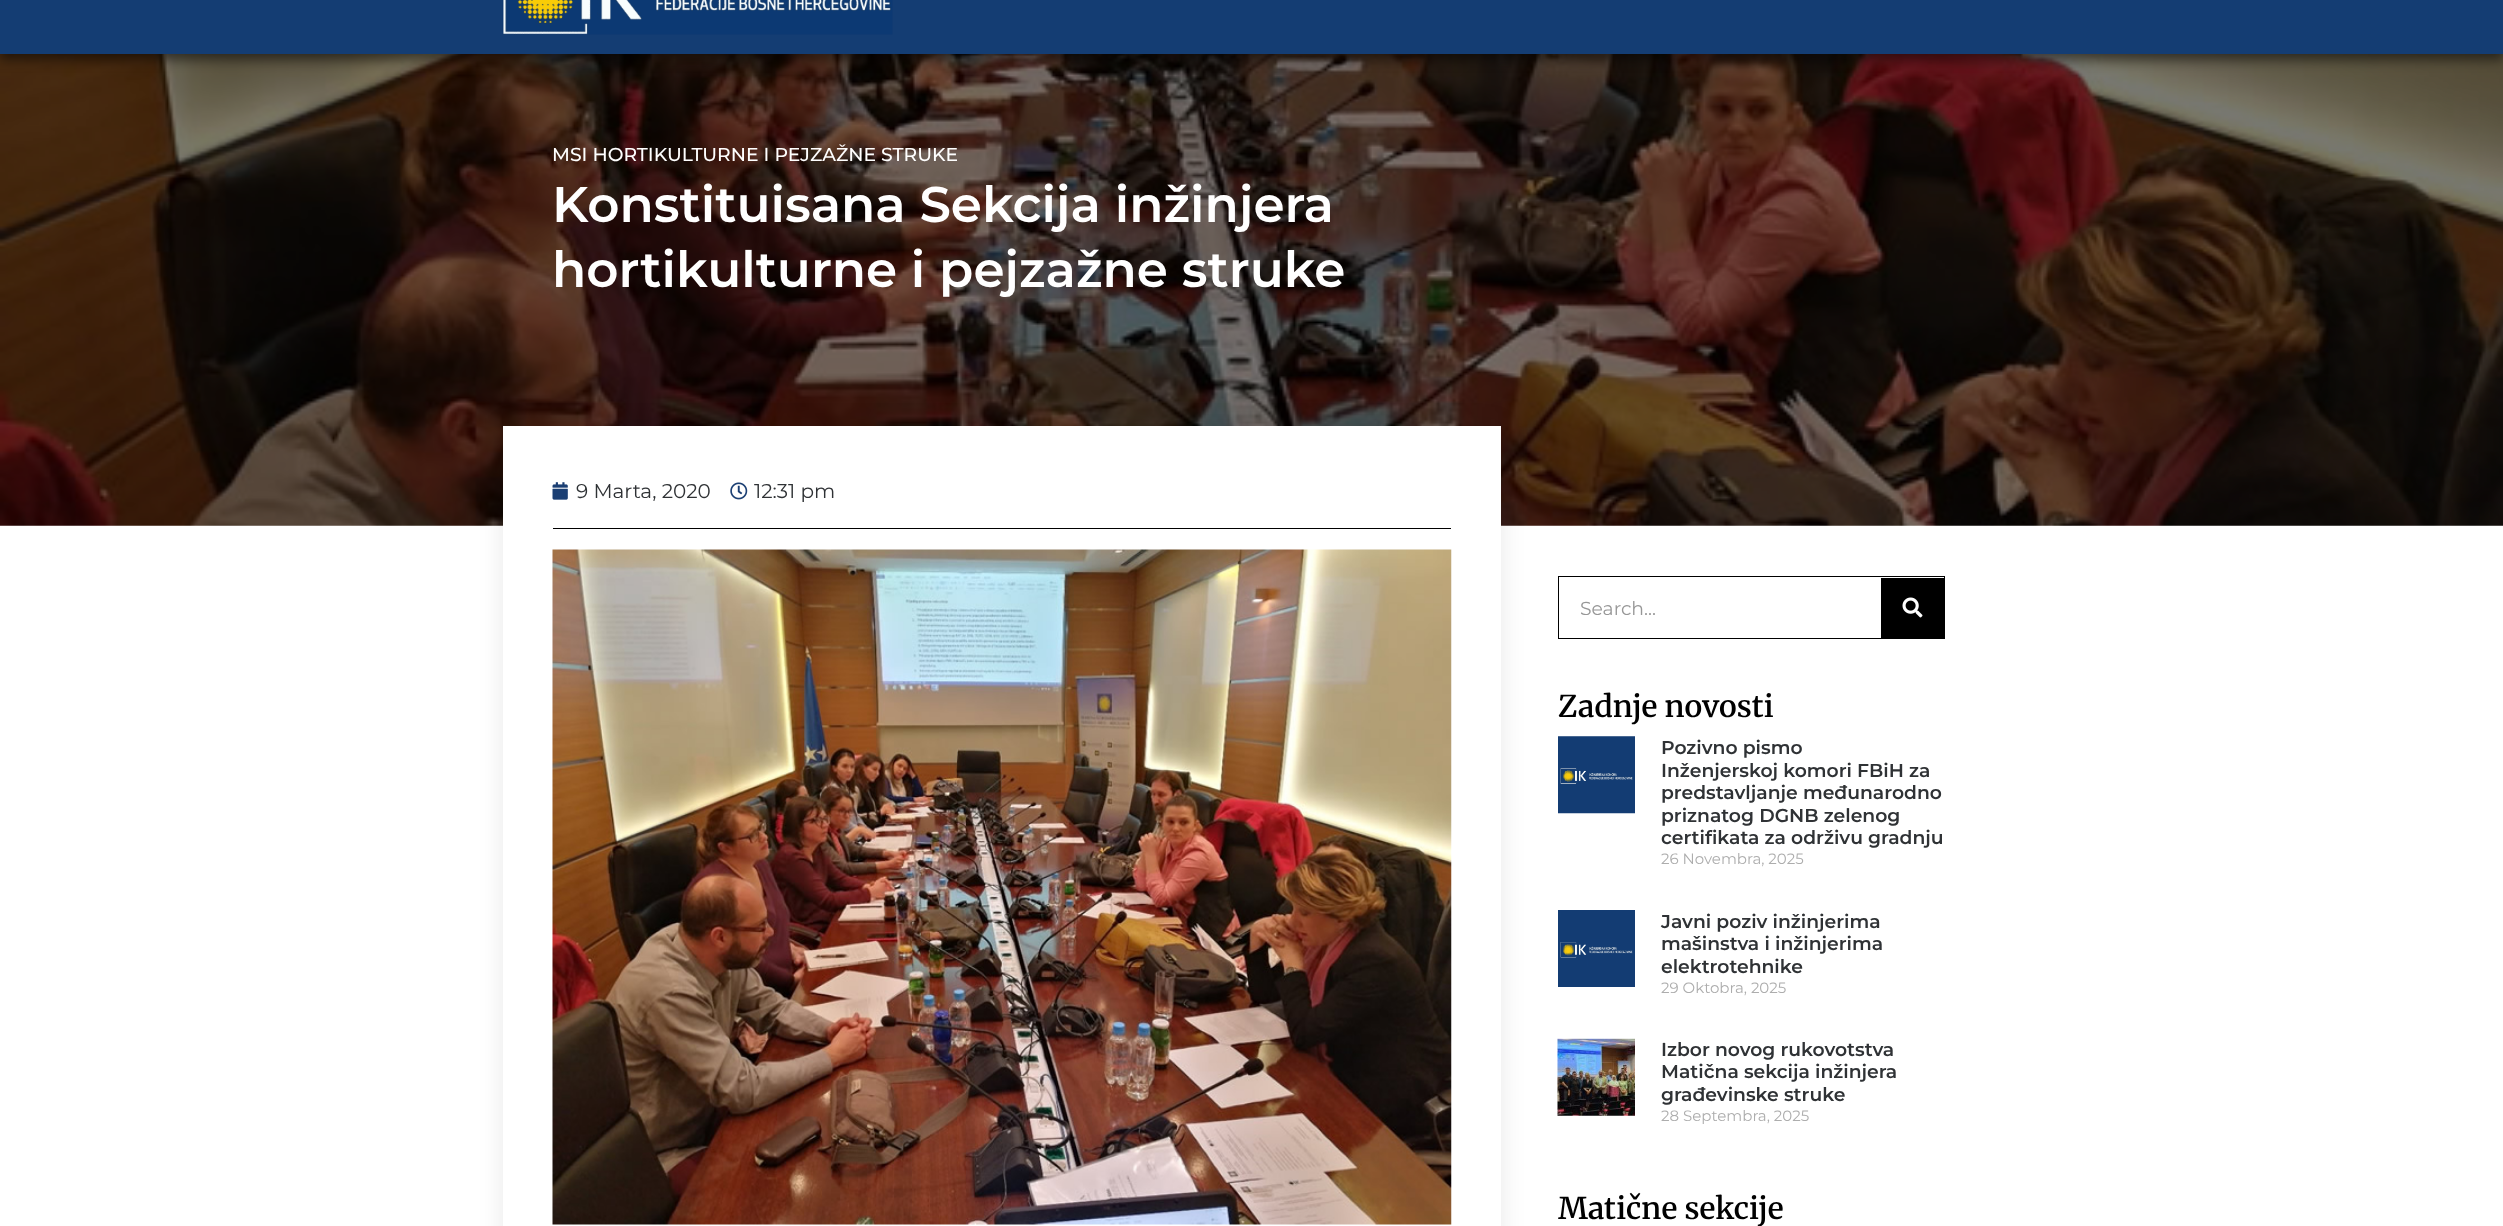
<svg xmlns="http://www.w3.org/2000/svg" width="2503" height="1226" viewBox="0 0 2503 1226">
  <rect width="100%" height="100%" fill="rgb(255,255,255)"/>
  <image x="0" y="54" width="2503" height="472" href="pic2.png"/>
  <rect x="0" y="-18" width="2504" height="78" fill="rgba(0,0,0,0.5)" filter="blur(6px)"/>
  <rect x="0" y="0" width="2503" height="54" fill="rgb(20,61,115)"/>
  <image x="502" y="0" width="391" height="35" href="pic1.png"/>
  <text x="552" y="161" font-family="Montserrat" font-size="18.75" font-weight="500" fill="rgb(255,255,255)">MSI HORTIKULTURNE I PEJZAŽNE STRUKE</text>
  <g font-family="Montserrat" font-size="50" font-weight="600" fill="rgb(255,255,255)">
    <text>
      <tspan x="552" y="222">Konstituisana Sekcija inžinjera</tspan>
      <tspan x="552" y="287">hortikulturne i pejzažne struke</tspan>
    </text>
  </g>
  <rect x="503" y="426" width="998" height="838" fill="rgba(0,0,0,0.09)" filter="blur(12.5px)"/>
  <rect x="503" y="426" width="998" height="800" fill="rgb(255,255,255)"/>
  <image x="552" y="482" width="16" height="18" href="pic3.png"/>
  <text x="576" y="498" font-family="Montserrat" font-size="20" fill="rgb(47,50,53)">9 Marta, 2020</text>
  <image x="730" y="482" width="18" height="18" href="pic4.png"/>
  <text x="754" y="498" font-family="Montserrat" font-size="20" fill="rgb(47,50,53)">12:31 pm</text>
  <rect x="553" y="528" width="898" height="1" fill="rgb(0,0,0)"/>
  <image x="552" y="549" width="900" height="676" href="pic5.png"/>
  <rect x="1558.5" y="576.5" width="386" height="62" fill="none" stroke="rgb(0,0,0)"/>
  <text x="1580" y="615" font-family="Montserrat" font-size="18.75" fill="rgb(151,151,151)">Search...</text>
  <rect x="1881" y="578" width="63" height="60" fill="rgb(0,0,0)"/>
  <image x="1902" y="597" width="21" height="21" href="pic6.png"/>
  <text x="1558" y="717" font-family="Merriweather" font-size="30" font-weight="600" fill="rgb(0,0,0)">Zadnje novosti</text>
  <image x="1558" y="736" width="77" height="78" href="pic7.png"/>
  <g font-family="Montserrat" font-size="18.75" font-weight="600" fill="rgb(47,50,53)">
    <text>
      <tspan x="1661" y="754">Pozivno pismo</tspan>
      <tspan x="1661" y="777">Inženjerskoj komori FBiH za</tspan>
      <tspan x="1661" y="799">predstavljanje međunarodno</tspan>
      <tspan x="1661" y="822">priznatog DGNB zelenog</tspan>
      <tspan x="1661" y="844">certifikata za održivu gradnju</tspan>
    </text>
  </g>
  <text x="1661" y="864" font-family="Montserrat" font-size="15" fill="rgb(173,173,173)">26 Novembra, 2025</text>
  <image x="1558" y="910" width="77" height="77" href="pic8.png"/>
  <g font-family="Montserrat" font-size="18.75" font-weight="600" fill="rgb(47,50,53)">
    <text>
      <tspan x="1661" y="928">Javni poziv inžinjerima</tspan>
      <tspan x="1661" y="950">mašinstva i inžinjerima</tspan>
      <tspan x="1661" y="973">elektrotehnike</tspan>
    </text>
  </g>
  <text x="1661" y="993" font-family="Montserrat" font-size="15" fill="rgb(173,173,173)">29 Oktobra, 2025</text>
  <image x="1557" y="1038" width="78" height="78" href="pic9.png"/>
  <g font-family="Montserrat" font-size="18.75" font-weight="600" fill="rgb(47,50,53)">
    <text>
      <tspan x="1661" y="1056">Izbor novog rukovotstva</tspan>
      <tspan x="1661" y="1078">Matična sekcija inžinjera</tspan>
      <tspan x="1661" y="1101">građevinske struke</tspan>
    </text>
  </g>
  <text x="1661" y="1121" font-family="Montserrat" font-size="15" fill="rgb(173,173,173)">28 Septembra, 2025</text>
  <text x="1558" y="1219" font-family="Merriweather" font-size="30" font-weight="600" fill="rgb(0,0,0)">Matične sekcije</text>
</svg>
